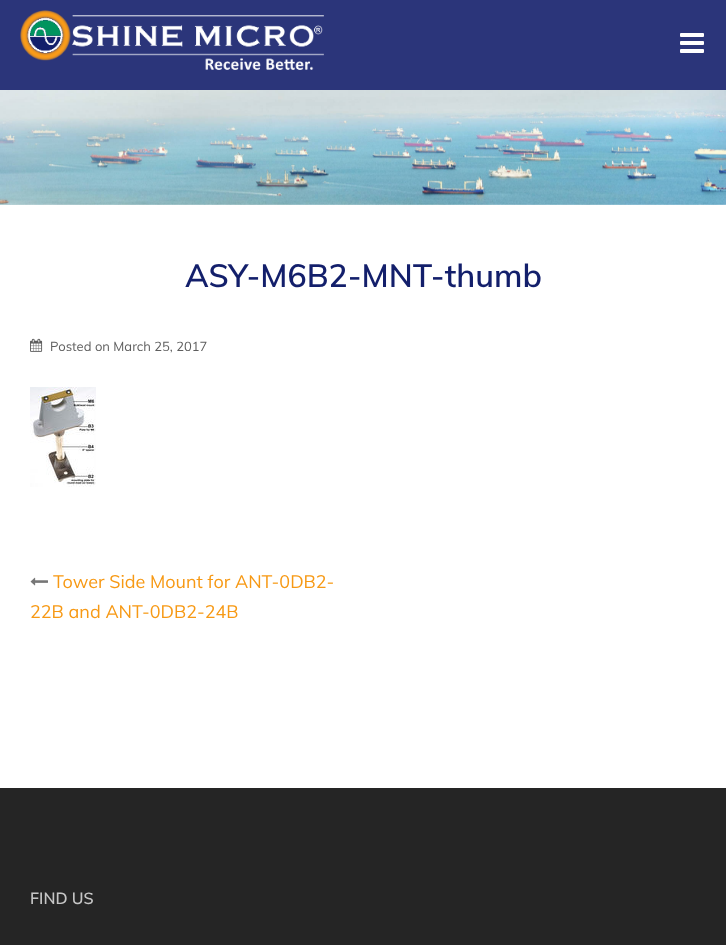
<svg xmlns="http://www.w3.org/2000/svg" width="726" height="945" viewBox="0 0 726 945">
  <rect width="100%" height="100%" fill="rgb(255,255,255)"/>
  <rect x="0" y="0" width="726" height="90" fill="rgb(43,53,122)"/>
  <image x="20" y="10" width="304" height="60" href="pic1.png"/>
  <image x="680" y="33" width="24" height="20" href="pic2.png"/>
  <image x="0" y="90" width="726" height="115" href="pic3.png"/>
  <text x="185" y="287" font-family="Muli" font-size="32" font-weight="600" fill="rgb(19,31,107)">ASY-M6B2-MNT-thumb</text>
  <image x="30" y="338" width="13" height="14" href="pic4.png"/>
  <text x="50" y="351" font-family="Muli" font-size="13" fill="rgb(94,94,94)">Posted on March 25, 2017</text>
  <image x="30" y="387" width="66" height="100" href="pic5.png"/>
  <image x="30" y="577" width="18" height="9" href="pic6.png"/>
  <g font-family="Muli" font-size="18" fill="rgb(247,153,20)">
    <text x="53" y="588">Tower Side Mount for ANT-0DB2-</text>
    <text x="30" y="618">22B and ANT-0DB2-24B</text>
  </g>
  <rect x="0" y="788" width="726" height="157" fill="rgb(37,37,37)"/>
  <text x="30" y="904" font-family="Muli" font-size="16" font-weight="600" fill="rgb(197,197,197)">FIND US</text>
</svg>
